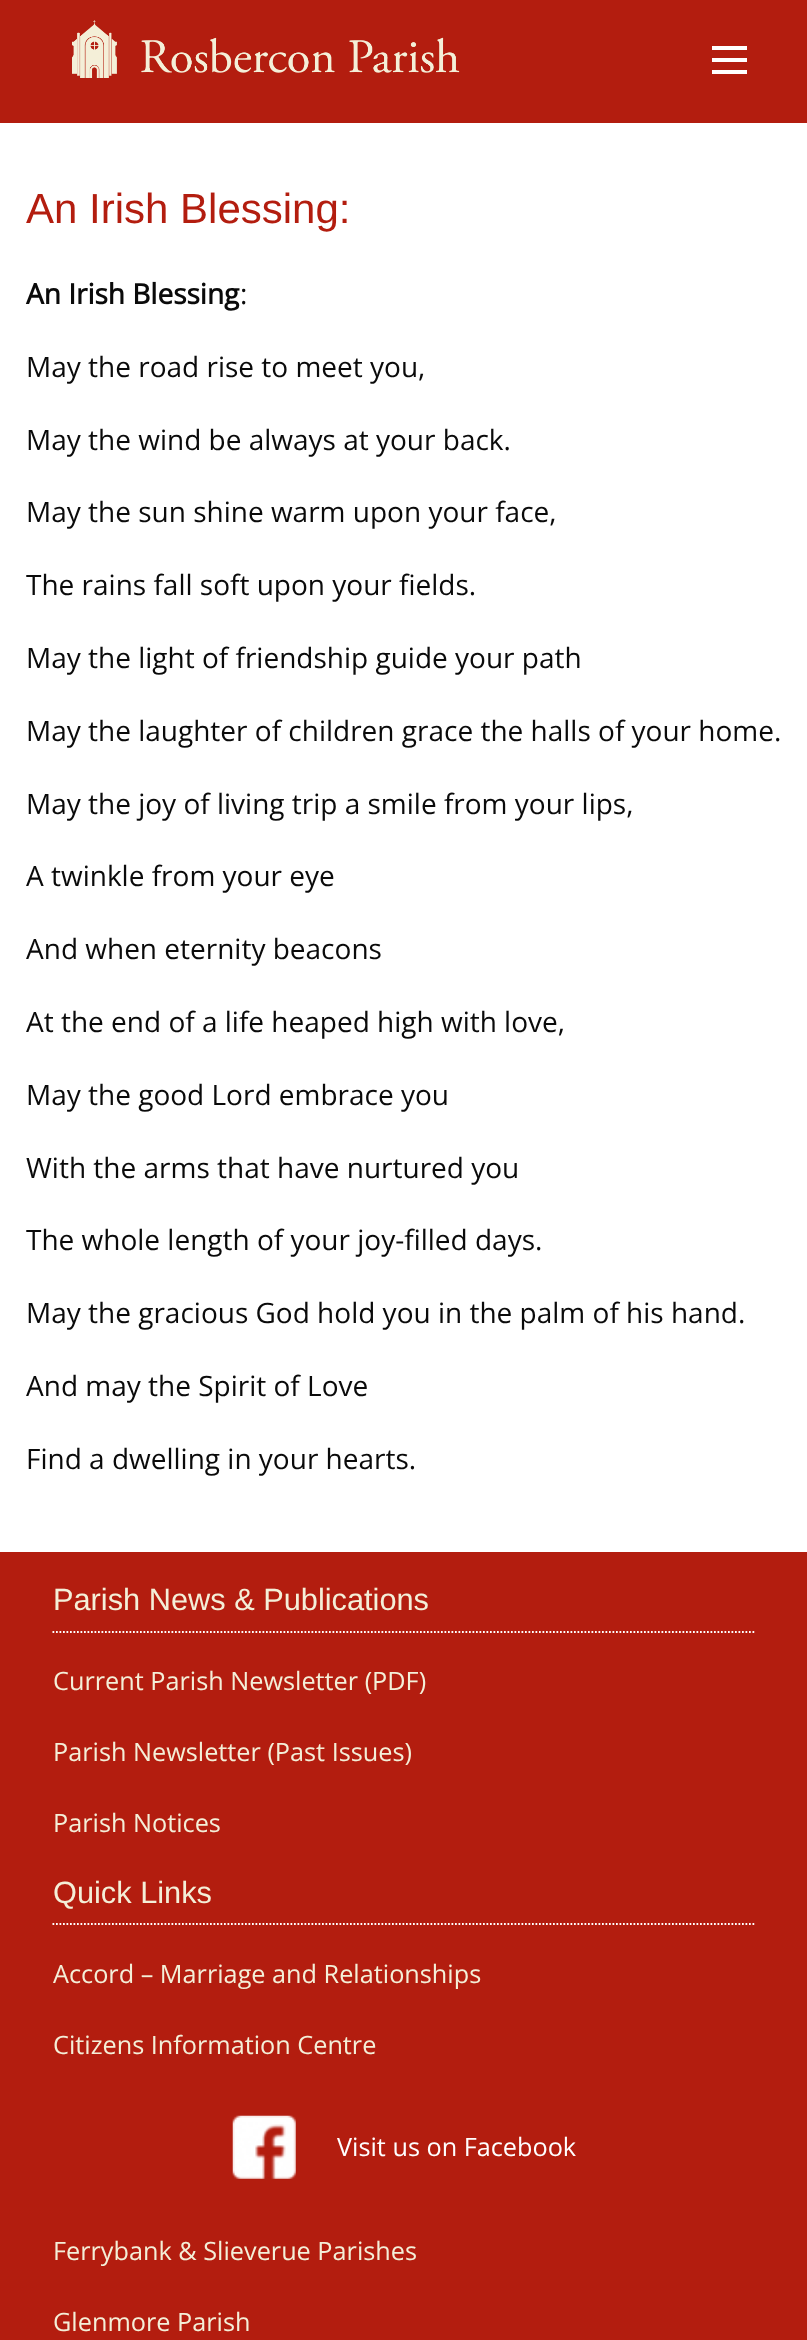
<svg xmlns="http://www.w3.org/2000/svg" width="807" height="2340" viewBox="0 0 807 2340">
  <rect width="100%" height="100%" fill="rgb(255,255,255)"/>
  <rect x="0" y="0" width="807" height="123" fill="rgb(179,29,15)"/>
  <image x="72" y="20" width="388" height="58" href="pic1.png"/>
  <rect x="712" y="70" width="35" height="4" fill="rgb(255,255,255)"/>
  <rect x="712" y="58" width="35" height="4" fill="rgb(255,255,255)"/>
  <rect x="712" y="46" width="35" height="4" fill="rgb(255,255,255)"/>
  <text x="26" y="223" font-family="Liberation Sans" font-size="42" fill="rgb(179,29,15)">An Irish Blessing:</text>
  <text x="26" y="304" font-family="Open Sans" font-size="28" font-weight="bold" fill="rgb(10,10,10)">An Irish Blessing</text>
  <g font-family="Open Sans" font-size="28" fill="rgb(10,10,10)">
    <text x="240" y="304">:</text>
    <text x="26" y="377">May the road rise to meet you,</text>
    <text x="26" y="450">May the wind be always at your back.</text>
    <text x="26" y="522">May the sun shine warm upon your face,</text>
    <text x="26" y="595">The rains fall soft upon your fields.</text>
    <text x="26" y="668">May the light of friendship guide your path</text>
    <text x="26" y="741">May the laughter of children grace the halls of your home.</text>
    <text x="26" y="814">May the joy of living trip a smile from your lips,</text>
    <text x="26" y="886">A twinkle from your eye</text>
    <text x="26" y="959">And when eternity beacons</text>
    <text x="26" y="1032">At the end of a life heaped high with love,</text>
    <text x="26" y="1105">May the good Lord embrace you</text>
    <text x="26" y="1178">With the arms that have nurtured you</text>
    <text x="26" y="1250">The whole length of your joy-filled days.</text>
    <text x="26" y="1323">May the gracious God hold you in the palm of his hand.</text>
    <text x="26" y="1396">And may the Spirit of Love</text>
    <text x="26" y="1469">Find a dwelling in your hearts.</text>
  </g>
  <rect x="0" y="1552" width="807" height="788" fill="rgb(179,29,15)"/>
  <path d="M52.5 1632H756" fill="none" stroke="rgb(255,255,255)" stroke-width="1.8" stroke-dasharray="1.75 1.75"/>
  <text x="53" y="1610" font-family="Liberation Sans" font-size="30.75" fill="rgb(244,239,216)">Parish News &amp; Publications</text>
  <g font-family="Open Sans" font-size="25.25" fill="rgb(244,239,216)">
    <text x="53" y="1690">Current Parish Newsletter (PDF)</text>
    <text x="53" y="1761">Parish Newsletter (Past Issues)</text>
    <text x="53" y="1832">Parish Notices</text>
  </g>
  <path d="M52.5 1924H756" fill="none" stroke="rgb(255,255,255)" stroke-width="1.8" stroke-dasharray="1.75 1.75"/>
  <text x="53" y="1903" font-family="Liberation Sans" font-size="30.75" fill="rgb(244,239,216)">Quick Links</text>
  <g font-family="Open Sans" font-size="25.25" fill="rgb(244,239,216)">
    <text x="53" y="1983">Accord – Marriage and Relationships</text>
    <text x="53" y="2054">Citizens Information Centre</text>
  </g>
  <image x="232" y="2115" width="64" height="64" href="pic2.png"/>
  <text x="337" y="2156" font-family="Open Sans" font-size="25.25" fill="rgb(255,255,255)">Visit us on Facebook</text>
  <g font-family="Open Sans" font-size="25.25" fill="rgb(244,239,216)">
    <text x="53" y="2260">Ferrybank &amp; Slieverue Parishes</text>
    <text x="53" y="2331">Glenmore Parish</text>
  </g>
</svg>
